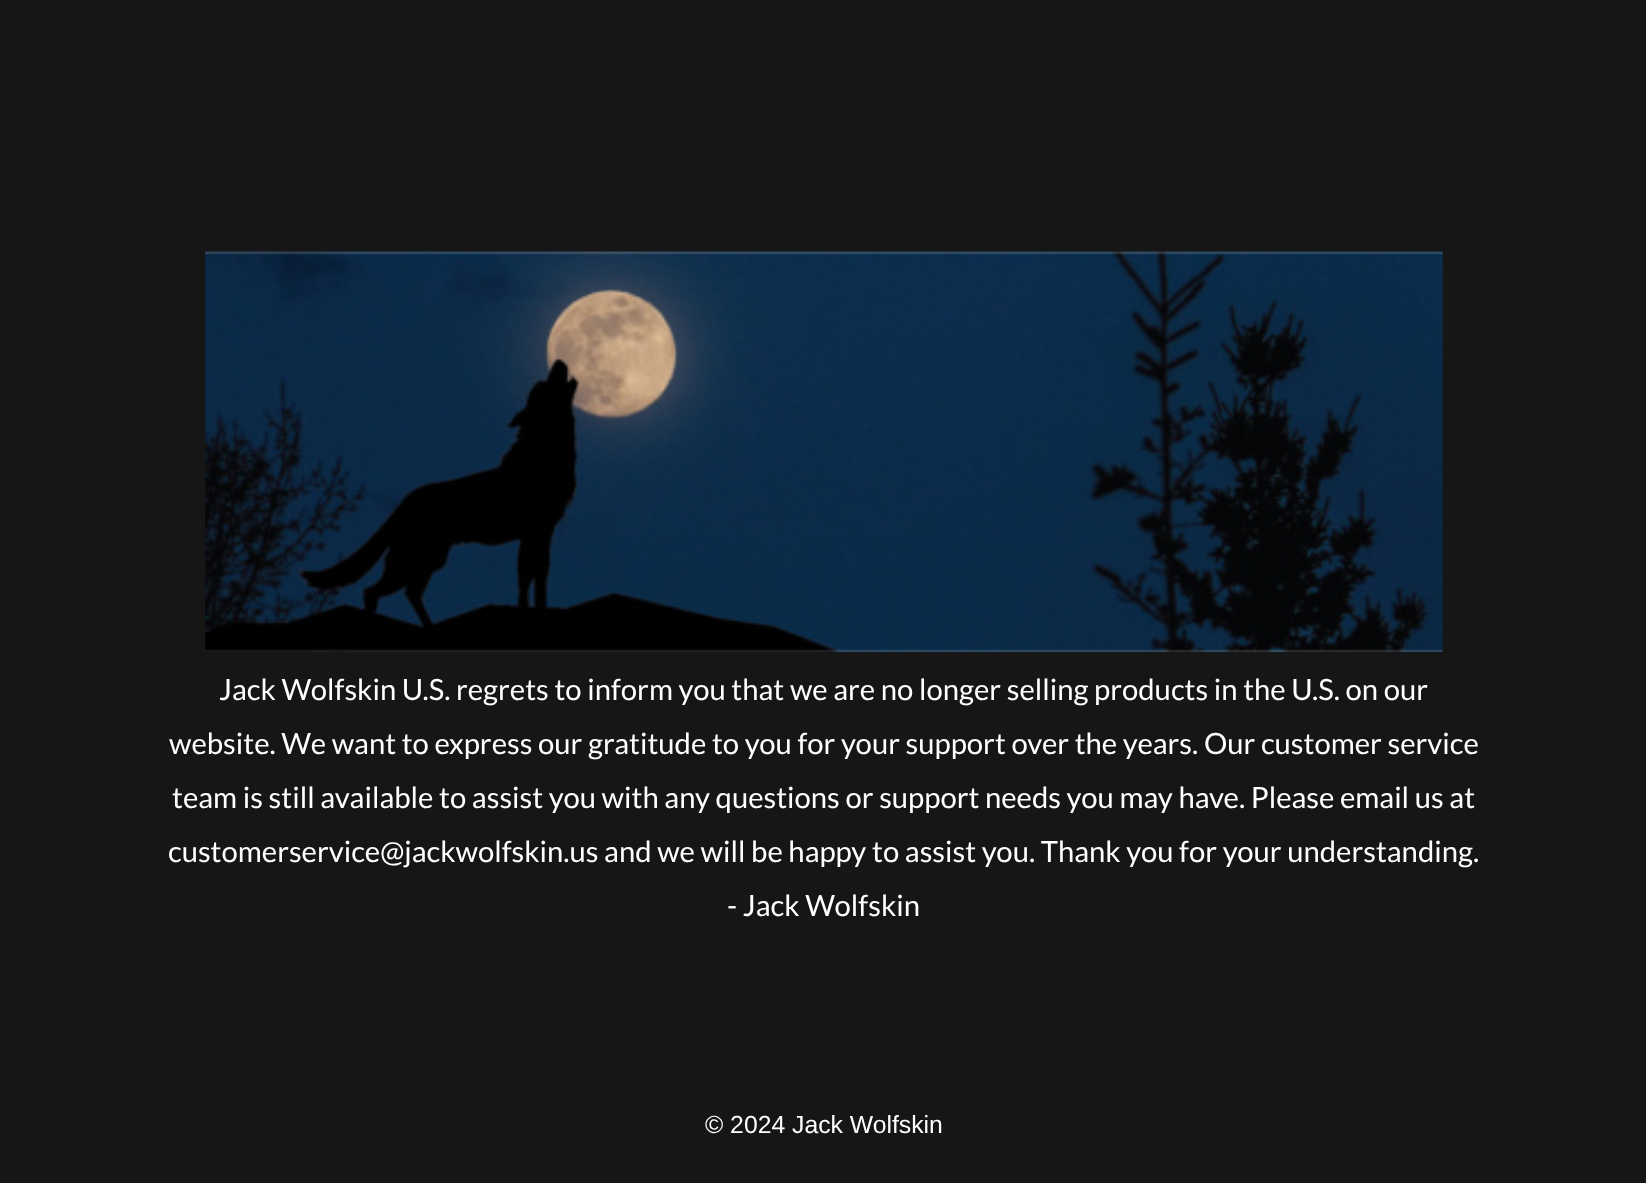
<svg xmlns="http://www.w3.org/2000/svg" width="1646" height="1183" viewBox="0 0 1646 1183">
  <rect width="100%" height="100%" fill="rgb(22,22,22)"/>
  <image x="205" y="251" width="1238" height="402" href="pic1.png"/>
  <g font-family="Lato" font-size="29.25" fill="rgb(255,255,255)">
    <text x="219" y="700">Jack Wolfskin U.S. regrets to inform you that we are no longer selling products in the U.S. on our</text>
    <text x="169" y="754">website. We want to express our gratitude to you for your support over the years. Our customer service</text>
    <text x="172" y="808">team is still available to assist you with any questions or support needs you may have. Please email us at</text>
    <text x="168" y="862">customerservice@jackwolfskin.us and we will be happy to assist you. Thank you for your understanding.</text>
    <text x="727" y="916">- Jack Wolfskin</text>
  </g>
  <text x="705" y="1133" font-family="Liberation Sans" font-size="24.75" fill="rgb(255,255,255)">© 2024 Jack Wolfskin</text>
</svg>
